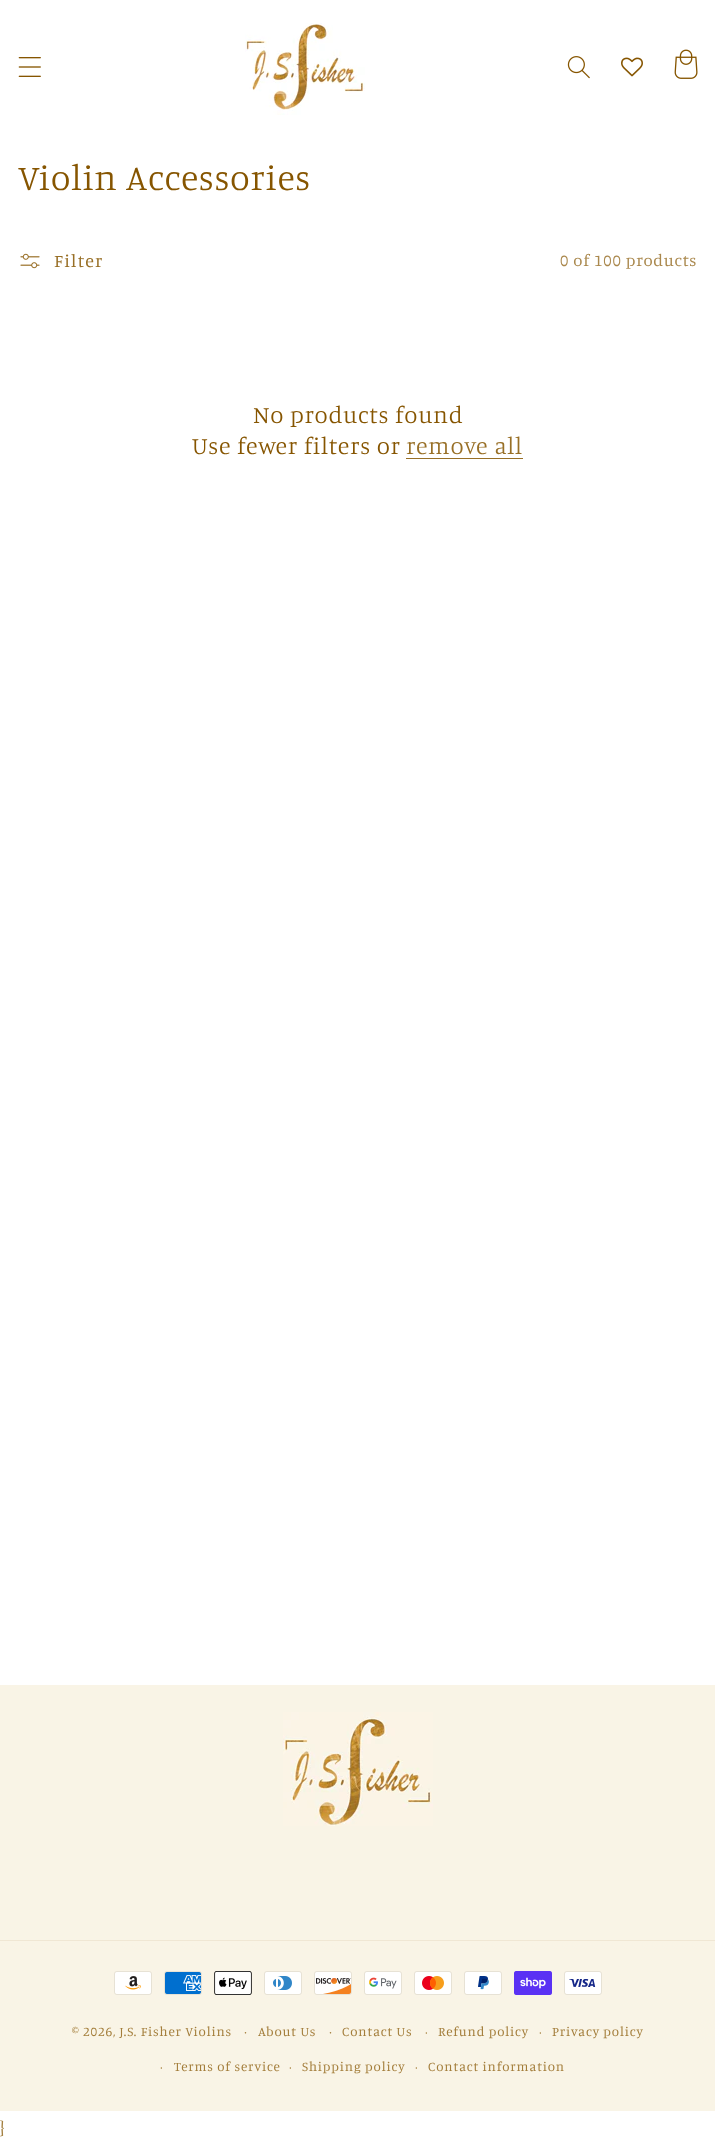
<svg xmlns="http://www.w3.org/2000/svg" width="715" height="2141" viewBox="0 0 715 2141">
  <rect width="100%" height="100%" fill="rgb(255,255,255)"/>
  <image x="18" y="57" width="23" height="20" href="pic1.png"/>
  <image x="245" y="23" width="120" height="92" href="pic2.png"/>
  <image x="567" y="56" width="23" height="23" href="pic3.png"/>
  <image x="621" y="57" width="22" height="20" href="pic4.png"/>
  <image x="674" y="49" width="24" height="30" href="pic5.png"/>
  <text x="18" y="190" font-family="Manuale" font-size="36" font-weight="300" letter-spacing="0.75" fill="rgb(134,85,0)">Violin Accessories</text>
  <image x="20" y="253" width="20" height="16" href="pic6.png"/>
  <text x="54" y="267" font-family="Manuale" font-size="18" letter-spacing="1.25" fill="rgb(152,111,38)">Filter</text>
  <text x="560" y="266" font-family="Manuale" font-size="16.75" letter-spacing="0.75" fill="rgb(170,136,77)">0 of 100 products</text>
  <g font-family="Manuale" font-size="24" font-weight="300" letter-spacing="0.75" fill="rgb(134,85,0)">
    <text x="253" y="423">No products found</text>
    <text x="192" y="454">Use fewer filters or</text>
  </g>
  <text x="406" y="454" font-family="Manuale" font-size="24" font-weight="300" letter-spacing="0.75" fill="rgb(152,111,38)">remove all</text>
  <rect x="406" y="458" width="117" height="1" fill="rgb(152,111,38)"/>
  <rect x="0" y="1685" width="715" height="426" fill="rgb(249,244,230)"/>
  <image x="283" y="1712" width="150" height="114" href="pic7.png"/>
  <rect x="0" y="1940" width="715" height="1" fill="rgb(240,231,212)"/>
  <image x="114" y="1971" width="38" height="24" href="pic8.png"/>
  <image x="164" y="1971" width="38" height="24" href="pic9.png"/>
  <image x="214" y="1971" width="38" height="24" href="pic10.png"/>
  <image x="264" y="1971" width="38" height="24" href="pic11.png"/>
  <image x="314" y="1971" width="38" height="24" href="pic12.png"/>
  <image x="364" y="1971" width="38" height="24" href="pic13.png"/>
  <image x="414" y="1971" width="38" height="24" href="pic14.png"/>
  <image x="464" y="1971" width="38" height="24" href="pic15.png"/>
  <image x="514" y="1971" width="38" height="24" href="pic16.png"/>
  <image x="564" y="1971" width="38" height="24" href="pic17.png"/>
  <g font-family="Manuale" font-size="13.25" letter-spacing="0.85" fill="rgb(163,125,58)">
    <text x="72" y="2036">© 2026, J.S. Fisher Violins</text>
    <text x="244" y="2036">·</text>
    <text x="258" y="2036">About Us</text>
    <text x="329" y="2036">·</text>
    <text x="342" y="2036">Contact Us</text>
  </g>
  <text x="425" y="2036" font-family="Manuale" font-size="12" letter-spacing="0.85" fill="rgb(163,125,58)">·</text>
  <text x="438" y="2036" font-family="Manuale" font-size="13.25" letter-spacing="0.85" fill="rgb(163,125,58)">Refund policy</text>
  <text x="539" y="2036" font-family="Manuale" font-size="12" letter-spacing="0.85" fill="rgb(163,125,58)">·</text>
  <text x="552" y="2036" font-family="Manuale" font-size="13.25" letter-spacing="0.85" fill="rgb(163,125,58)">Privacy policy</text>
  <text x="160" y="2071" font-family="Manuale" font-size="12" letter-spacing="0.85" fill="rgb(163,125,58)">·</text>
  <text x="174" y="2071" font-family="Manuale" font-size="13.25" letter-spacing="0.85" fill="rgb(163,125,58)">Terms of service</text>
  <text x="289" y="2071" font-family="Manuale" font-size="12" letter-spacing="0.85" fill="rgb(163,125,58)">·</text>
  <text x="302" y="2071" font-family="Manuale" font-size="13.25" letter-spacing="0.85" fill="rgb(163,125,58)">Shipping policy</text>
  <text x="415" y="2071" font-family="Manuale" font-size="12" letter-spacing="0.85" fill="rgb(163,125,58)">·</text>
  <text x="428" y="2071" font-family="Manuale" font-size="13.25" letter-spacing="0.85" fill="rgb(163,125,58)">Contact information</text>
  <text x="0" y="2133" font-family="Manuale" font-size="18" letter-spacing="0.75" fill="rgb(164,128,64)">}</text>
</svg>
